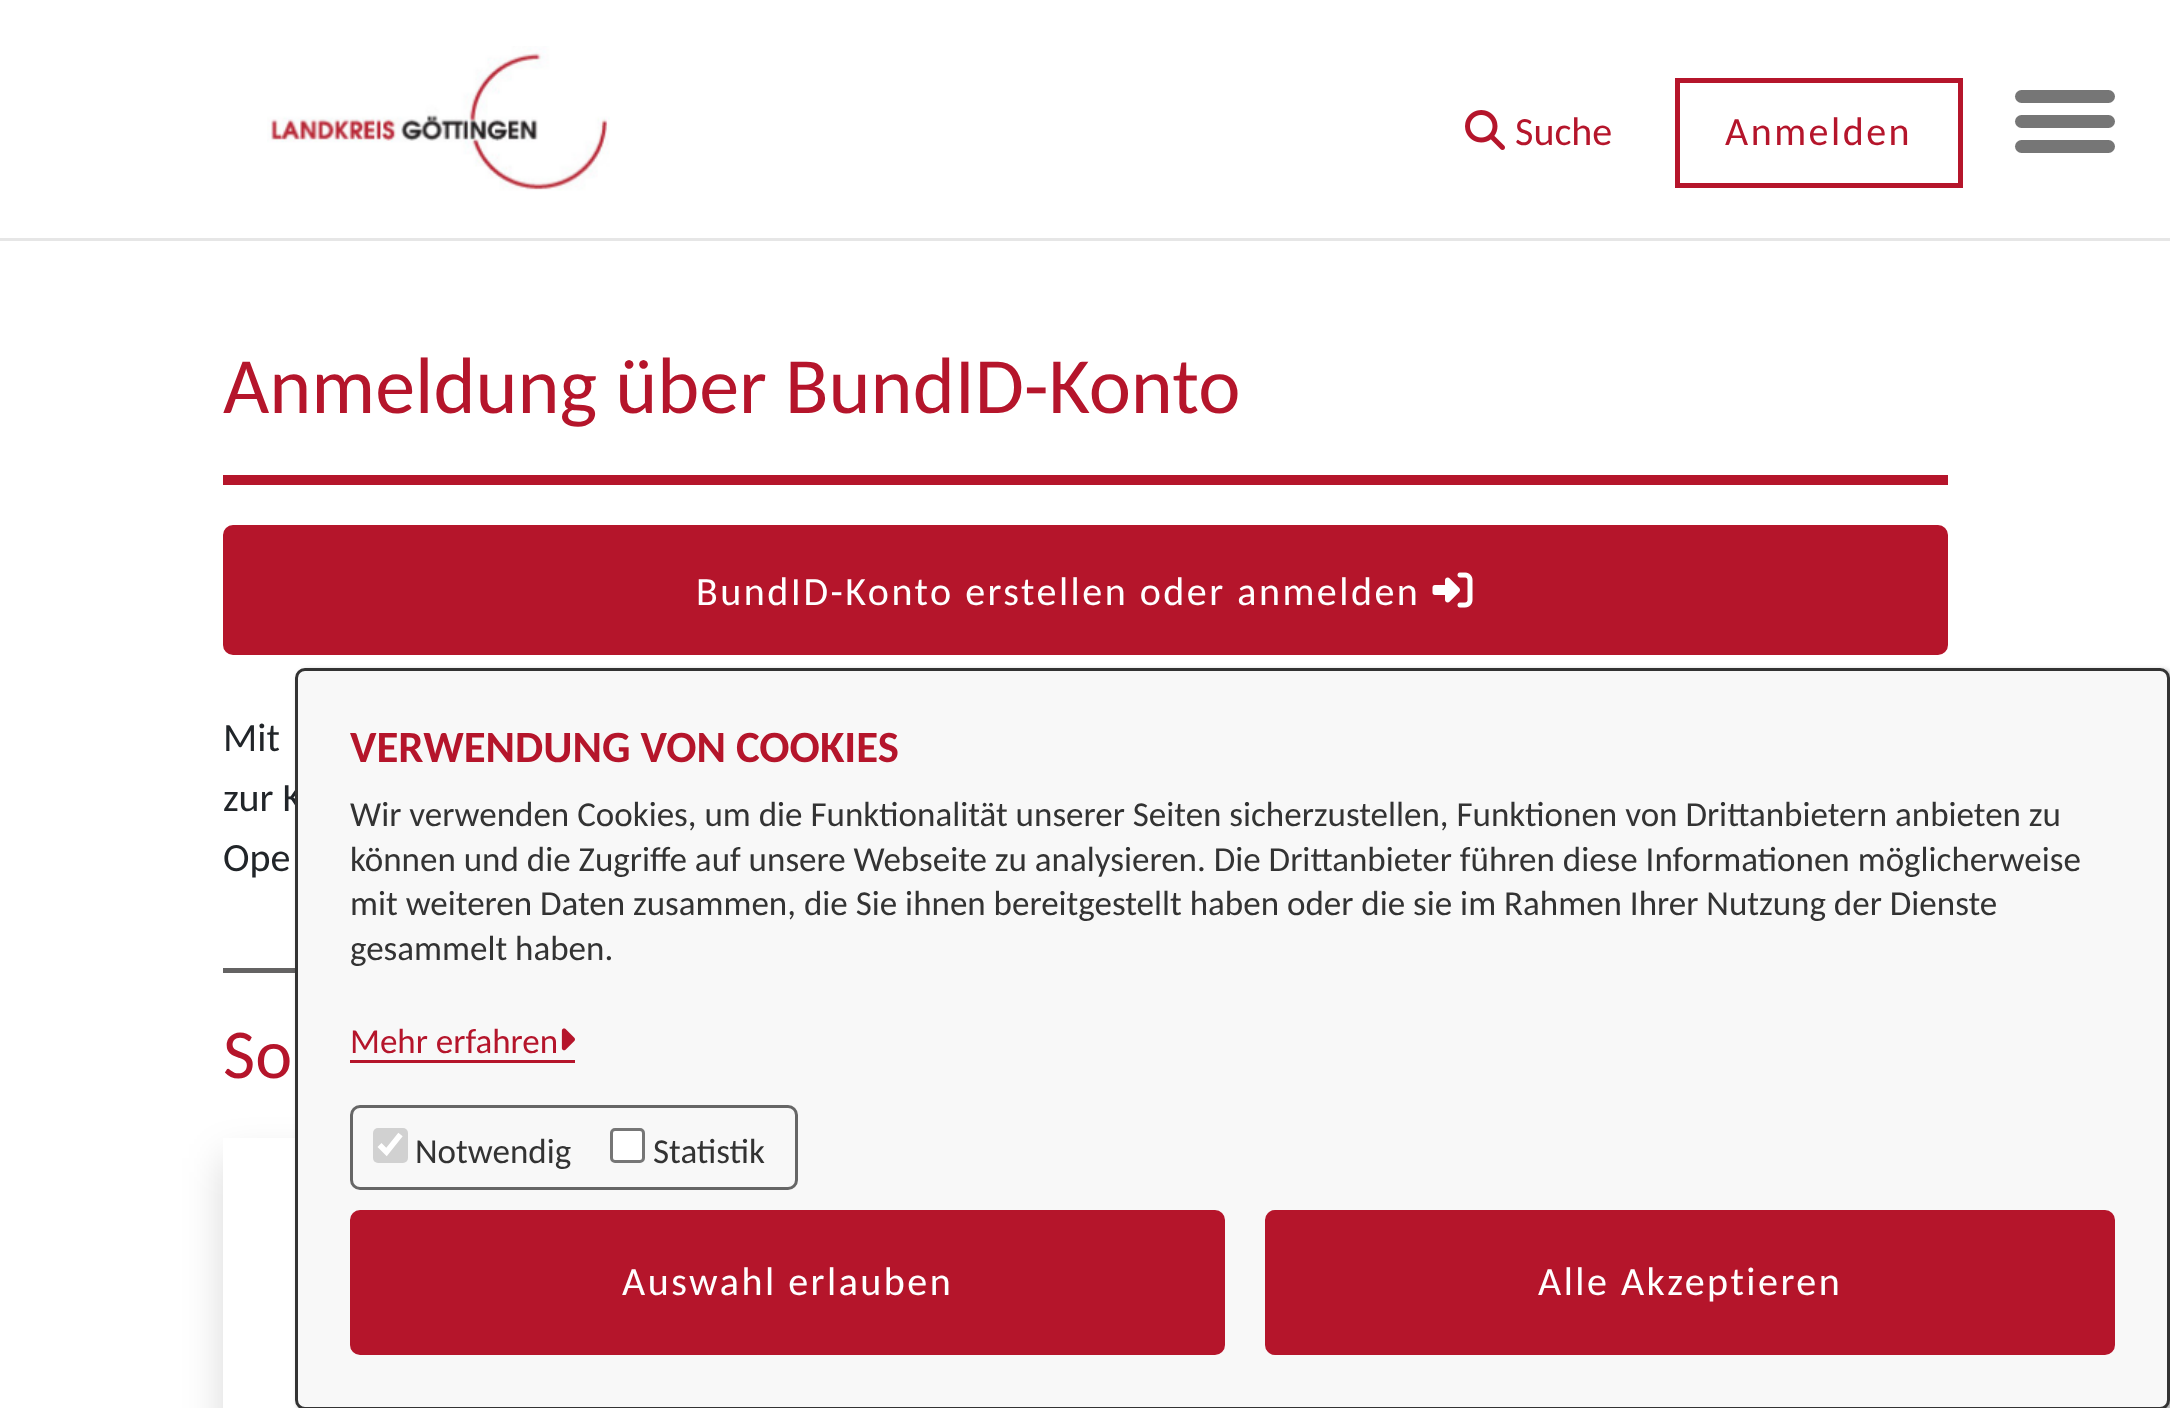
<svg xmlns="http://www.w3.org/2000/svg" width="2170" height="1408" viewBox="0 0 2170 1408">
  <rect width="100%" height="100%" fill="rgb(255,255,255)"/>
  <rect x="0" y="238" width="2170" height="3" fill="rgb(230,230,230)"/>
  <image x="267" y="46" width="343" height="145" href="pic1.png"/>
  <image x="1465" y="110" width="40" height="40" href="pic2.png"/>
  <text x="1515" y="145" font-family="Carlito" font-size="40" fill="rgb(181,21,43)">Suche</text>
  <rect x="1677.5" y="80.5" width="283" height="105" fill="none" stroke="rgb(181,21,43)" stroke-width="5"/>
  <text x="1725" y="145" font-family="Carlito" font-size="40" letter-spacing="2.5" fill="rgb(181,21,43)">Anmelden</text>
  <rect x="2015" y="115" width="100" height="13" rx="6.5" fill="rgb(118,118,118)"/>
  <rect x="2015" y="90" width="100" height="13" rx="6.5" fill="rgb(118,118,118)"/>
  <rect x="2015" y="140" width="100" height="13" rx="6.5" fill="rgb(118,118,118)"/>
  <text x="223" y="413" font-family="Carlito" font-size="80" fill="rgb(181,21,43)">Anmeldung über BundID-Konto</text>
  <rect x="223" y="475" width="1725" height="10" fill="rgb(181,21,43)"/>
  <rect x="224.5" y="526.5" width="1722" height="127" rx="8.5" fill="rgb(181,21,43)" stroke="rgb(181,21,43)" stroke-width="3"/>
  <text x="696" y="605" font-family="Carlito" font-size="40" letter-spacing="2.5" fill="rgb(255,255,255)">BundID-Konto erstellen oder anmelden</text>
  <image x="1432" y="572" width="41" height="36" href="pic3.png"/>
  <g font-family="Carlito" font-size="40" fill="rgb(33,37,41)">
    <text>
      <tspan x="223" y="751">Mit</tspan>
      <tspan x="223" y="811">zur K</tspan>
      <tspan x="223" y="871">Ope</tspan>
    </text>
  </g>
  <rect x="223" y="968" width="72" height="5" fill="rgb(100,99,99)"/>
  <text x="223" y="1078" font-family="Carlito" font-size="70" fill="rgb(181,21,43)">So</text>
  <rect x="223" y="1158" width="825" height="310" fill="rgba(0,0,0,0.15)" filter="blur(20px)"/>
  <rect x="223" y="1138" width="76" height="270" fill="rgb(255,255,255)"/>
  <rect x="298" y="670" width="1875" height="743" rx="10" fill="rgba(0,0,0,0.33)" filter="blur(2.5px)"/>
  <rect x="296.5" y="669.5" width="1872" height="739" rx="8.5" fill="rgb(248,248,248)" stroke="rgb(51,51,51)" stroke-width="3"/>
  <text x="350" y="762" font-family="Carlito" font-size="44.75" font-weight="bold" fill="rgb(181,21,43)">VERWENDUNG VON COOKIES</text>
  <g font-family="Carlito" font-size="35" fill="rgb(51,51,51)">
    <text>
      <tspan x="350" y="826">Wir verwenden Cookies, um die Funktionalität unserer Seiten sicherzustellen, Funktionen von Drittanbietern anbieten zu</tspan>
      <tspan x="350" y="871">können und die Zugriffe auf unsere Webseite zu analysieren. Die Drittanbieter führen diese Informationen möglicherweise</tspan>
      <tspan x="350" y="915">mit weiteren Daten zusammen, die Sie ihnen bereitgestellt haben oder die sie im Rahmen Ihrer Nutzung der Dienste</tspan>
      <tspan x="350" y="960">gesammelt haben.</tspan>
    </text>
  </g>
  <text x="350" y="1053" font-family="Carlito" font-size="35" fill="rgb(181,21,43)">Mehr erfahren</text>
  <rect x="350" y="1060" width="225" height="3" fill="rgb(181,21,43)"/>
  <image x="561" y="1028" width="14" height="23" href="pic4.png"/>
  <rect x="351.5" y="1106.5" width="445" height="82" rx="8.5" fill="none" stroke="rgb(102,102,102)" stroke-width="3"/>
  <rect x="373" y="1128" width="35" height="35" rx="5" fill="rgb(209,209,209)"/>
  <path d="M379.5 1145L386.5 1152L400.5 1134.5" fill="none" stroke="rgb(255,255,255)" stroke-width="5.6"/>
  <text x="415" y="1163" font-family="Carlito" font-size="35" fill="rgb(51,51,51)">Notwendig</text>
  <rect x="611.5" y="1129.5" width="32" height="32" rx="3.5" fill="rgb(255,255,255)" stroke="rgb(118,118,118)" stroke-width="3"/>
  <text x="653" y="1163" font-family="Carlito" font-size="35" fill="rgb(51,51,51)">Statistik</text>
  <rect x="351.5" y="1211.5" width="872" height="142" rx="8.5" fill="rgb(181,21,43)" stroke="rgb(181,21,43)" stroke-width="3"/>
  <text x="622" y="1295" font-family="Carlito" font-size="40" letter-spacing="2.5" fill="rgb(255,255,255)">Auswahl erlauben</text>
  <rect x="1266.5" y="1211.5" width="847" height="142" rx="8.5" fill="rgb(181,21,43)" stroke="rgb(181,21,43)" stroke-width="3"/>
  <text x="1538" y="1295" font-family="Carlito" font-size="40" letter-spacing="2.5" fill="rgb(255,255,255)">Alle Akzeptieren</text>
</svg>
